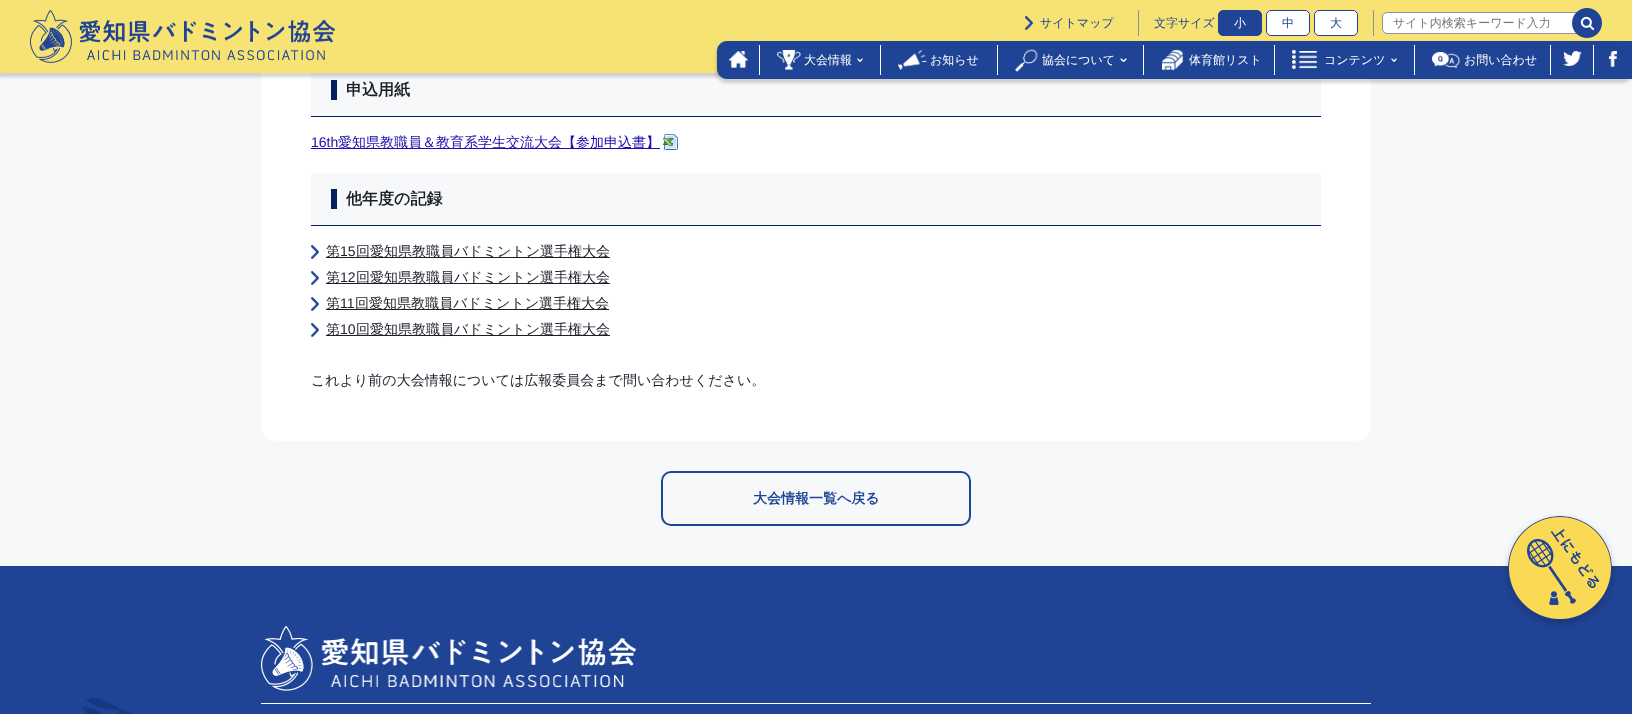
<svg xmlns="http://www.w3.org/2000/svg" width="1632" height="714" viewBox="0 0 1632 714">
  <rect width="100%" height="100%" fill="rgb(246,248,249)"/>
  <rect x="261" y="-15" width="1110" height="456" rx="15" fill="rgb(255,255,255)"/>
  <rect x="311" y="73" width="1010" height="43" fill="rgb(246,248,249)"/>
  <rect x="331" y="80" width="6" height="20" fill="rgb(2,31,96)"/>
  <rect x="-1" y="2" width="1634" height="75" fill="rgba(0,0,0,0.16)" filter="blur(1.5px)"/>
  <rect x="0" y="0" width="1632" height="73" fill="rgb(247,226,116)"/>
  <image x="30" y="10" width="305" height="53" href="pic1.png"/>
  <image x="1025" y="16" width="8" height="14" href="pic2.png"/>
  <text x="1040" y="27" font-family="WenQuanYi Zen Hei" font-size="12" font-weight="500" fill="rgb(32,68,149)">サイトマップ</text>
  <rect x="1373" y="10" width="1" height="26" fill="rgb(135,147,163)"/>
  <rect x="1138" y="10" width="1" height="26" fill="rgb(135,147,163)"/>
  <text x="1154" y="27" font-family="WenQuanYi Zen Hei" font-size="12" font-weight="500" fill="rgb(32,68,149)">文字サイズ</text>
  <rect x="1218.5" y="10.5" width="43" height="25" rx="4.5" fill="rgb(32,68,149)" stroke="rgb(32,68,149)"/>
  <text x="1234" y="27" font-family="WenQuanYi Zen Hei" font-size="12" font-weight="500" fill="rgb(255,255,255)">小</text>
  <rect x="1266.5" y="10.5" width="43" height="25" rx="4.5" fill="rgb(255,255,255)" stroke="rgb(32,68,149)"/>
  <text x="1282" y="27" font-family="WenQuanYi Zen Hei" font-size="12" font-weight="500" fill="rgb(32,68,149)">中</text>
  <rect x="1314.5" y="10.5" width="43" height="25" rx="4.5" fill="rgb(255,255,255)" stroke="rgb(32,68,149)"/>
  <text x="1330" y="27" font-family="WenQuanYi Zen Hei" font-size="12" font-weight="500" fill="rgb(32,68,149)">大</text>
  <rect x="1382.5" y="12.5" width="209" height="21" rx="4.5" fill="rgb(255,255,255)" stroke="rgb(135,147,163)"/>
  <text x="1393" y="27" font-family="WenQuanYi Zen Hei" font-size="12" font-weight="500" fill="rgb(117,117,117)">サイト内検索キーワード入力</text>
  <image x="1572" y="8" width="30" height="30" href="pic3.png"/>
  <rect x="716" y="43" width="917" height="40" rx="11" fill="rgba(0,0,0,0.16)" filter="blur(1.5px)"/>
  <path d="M727 41H760V79H727C721.5 79 717 74.5 717 69V51C717 45.5 721.5 41 727 41Z" fill="rgb(32,68,149)"/>
  <image x="729" y="51" width="19" height="17" href="pic4.png"/>
  <rect x="759" y="45" width="1" height="30" fill="rgb(255,255,255)"/>
  <rect x="760" y="41" width="872" height="38" fill="rgb(32,68,149)"/>
  <image x="777" y="50" width="24" height="20" href="pic5.png"/>
  <text x="804" y="64" font-family="WenQuanYi Zen Hei" font-size="12" font-weight="500" fill="rgb(255,255,255)">大会情報</text>
  <image x="857" y="58" width="6" height="4" href="pic6.png"/>
  <rect x="880" y="45" width="1" height="30" fill="rgb(255,255,255)"/>
  <image x="898" y="50" width="29" height="20" href="pic7.png"/>
  <text x="930" y="64" font-family="WenQuanYi Zen Hei" font-size="12" font-weight="500" fill="rgb(255,255,255)">お知らせ</text>
  <rect x="997" y="45" width="1" height="30" fill="rgb(255,255,255)"/>
  <image x="1015" y="49" width="23" height="23" href="pic8.png"/>
  <text x="1042" y="64" font-family="WenQuanYi Zen Hei" font-size="12" font-weight="500" fill="rgb(255,255,255)">協会について</text>
  <image x="1120" y="58" width="7" height="4" href="pic9.png"/>
  <rect x="1143" y="45" width="1" height="30" fill="rgb(255,255,255)"/>
  <image x="1162" y="50" width="22" height="21" href="pic10.png"/>
  <text x="1189" y="64" font-family="WenQuanYi Zen Hei" font-size="12" font-weight="500" fill="rgb(255,255,255)">体育館リスト</text>
  <rect x="1274" y="45" width="1" height="30" fill="rgb(255,255,255)"/>
  <image x="1292" y="50" width="25" height="19" href="pic11.png"/>
  <text x="1324" y="64" font-family="WenQuanYi Zen Hei" font-size="12" font-weight="500" fill="rgb(255,255,255)">コンテンツ</text>
  <image x="1391" y="58" width="6" height="4" href="pic6.png"/>
  <rect x="1414" y="45" width="1" height="30" fill="rgb(255,255,255)"/>
  <image x="1432" y="52" width="28" height="16" href="pic12.png"/>
  <text x="1464" y="64" font-family="WenQuanYi Zen Hei" font-size="12" font-weight="500" fill="rgb(255,255,255)">お問い合わせ</text>
  <rect x="1550" y="45" width="1" height="30" fill="rgb(255,255,255)"/>
  <image x="1563" y="51" width="19" height="15" href="pic13.png"/>
  <rect x="1593" y="45" width="1" height="30" fill="rgb(255,255,255)"/>
  <image x="1609" y="51" width="8" height="16" href="pic14.png"/>
  <rect x="311" y="116" width="1010" height="1" fill="rgb(2,31,96)"/>
  <text x="346" y="95" font-family="WenQuanYi Zen Hei" font-size="16" font-weight="bold" fill="rgb(27,31,41)">申込用紙</text>
  <text x="311" y="147" font-family="Liberation Sans" font-size="14" fill="rgb(26,13,171)">16th</text>
  <rect x="311" y="148" width="349" height="1" fill="rgb(26,13,171)"/>
  <text x="338" y="147" font-family="WenQuanYi Zen Hei" font-size="14" font-weight="500" fill="rgb(26,13,171)">愛知県教職員＆教育系学生交流大会【参加申込書】</text>
  <image x="663" y="134" width="15" height="16" href="pic15.png"/>
  <rect x="311" y="173" width="1010" height="52" fill="rgb(246,248,249)"/>
  <rect x="311" y="225" width="1010" height="1" fill="rgb(2,31,96)"/>
  <rect x="331" y="189" width="6" height="20" fill="rgb(2,31,96)"/>
  <text x="346" y="204" font-family="WenQuanYi Zen Hei" font-size="16" font-weight="bold" fill="rgb(27,31,41)">他年度の記録</text>
  <image x="311" y="245" width="8" height="14" href="pic16.png"/>
  <rect x="326" y="257" width="284" height="1" fill="rgb(27,31,41)"/>
  <text x="326" y="256" font-family="WenQuanYi Zen Hei" font-size="14" font-weight="500" fill="rgb(27,31,41)">第</text>
  <text x="340" y="256" font-family="Liberation Sans" font-size="14" fill="rgb(27,31,41)">15</text>
  <text x="356" y="256" font-family="WenQuanYi Zen Hei" font-size="14" font-weight="500" fill="rgb(27,31,41)">回愛知県教職員バドミントン選手権大会</text>
  <image x="311" y="271" width="8" height="14" href="pic16.png"/>
  <rect x="326" y="283" width="284" height="1" fill="rgb(27,31,41)"/>
  <text x="326" y="282" font-family="WenQuanYi Zen Hei" font-size="14" font-weight="500" fill="rgb(27,31,41)">第</text>
  <text x="340" y="282" font-family="Liberation Sans" font-size="14" fill="rgb(27,31,41)">12</text>
  <text x="356" y="282" font-family="WenQuanYi Zen Hei" font-size="14" font-weight="500" fill="rgb(27,31,41)">回愛知県教職員バドミントン選手権大会</text>
  <image x="311" y="297" width="8" height="14" href="pic16.png"/>
  <rect x="326" y="309" width="283" height="1" fill="rgb(27,31,41)"/>
  <text x="326" y="308" font-family="WenQuanYi Zen Hei" font-size="14" font-weight="500" fill="rgb(27,31,41)">第</text>
  <text x="340" y="308" font-family="Liberation Sans" font-size="14" fill="rgb(27,31,41)">11</text>
  <text x="355" y="308" font-family="WenQuanYi Zen Hei" font-size="14" font-weight="500" fill="rgb(27,31,41)">回愛知県教職員バドミントン選手権大会</text>
  <image x="311" y="323" width="8" height="14" href="pic16.png"/>
  <rect x="326" y="335" width="284" height="1" fill="rgb(27,31,41)"/>
  <text x="326" y="334" font-family="WenQuanYi Zen Hei" font-size="14" font-weight="500" fill="rgb(27,31,41)">第</text>
  <text x="340" y="334" font-family="Liberation Sans" font-size="14" fill="rgb(27,31,41)">10</text>
  <g font-family="WenQuanYi Zen Hei" font-size="14" font-weight="500" fill="rgb(27,31,41)">
    <text x="356" y="334">回愛知県教職員バドミントン選手権大会</text>
    <text x="311" y="385">これより前の大会情報については広報委員会まで問い合わせください。</text>
  </g>
  <rect x="662" y="472" width="308" height="53" rx="9" fill="none" stroke="rgb(32,68,149)" stroke-width="2"/>
  <text x="753" y="503" font-family="WenQuanYi Zen Hei" font-size="14" font-weight="bold" fill="rgb(32,68,149)">大会情報一覧へ戻る</text>
  <rect x="0" y="566" width="1632" height="148" fill="rgb(32,68,149)"/>
  <rect x="1507" y="518" width="106" height="106" rx="53" fill="rgba(0,0,0,0.16)" filter="blur(3px)"/>
  <image x="1508" y="516" width="104" height="103" href="pic17.png"/>
  <image x="82" y="697" width="50" height="17" href="pic18.png"/>
  <rect x="261" y="703" width="1110" height="1" fill="rgb(255,255,255)"/>
  <image x="261" y="626" width="375" height="65" href="pic19.png"/>
</svg>
